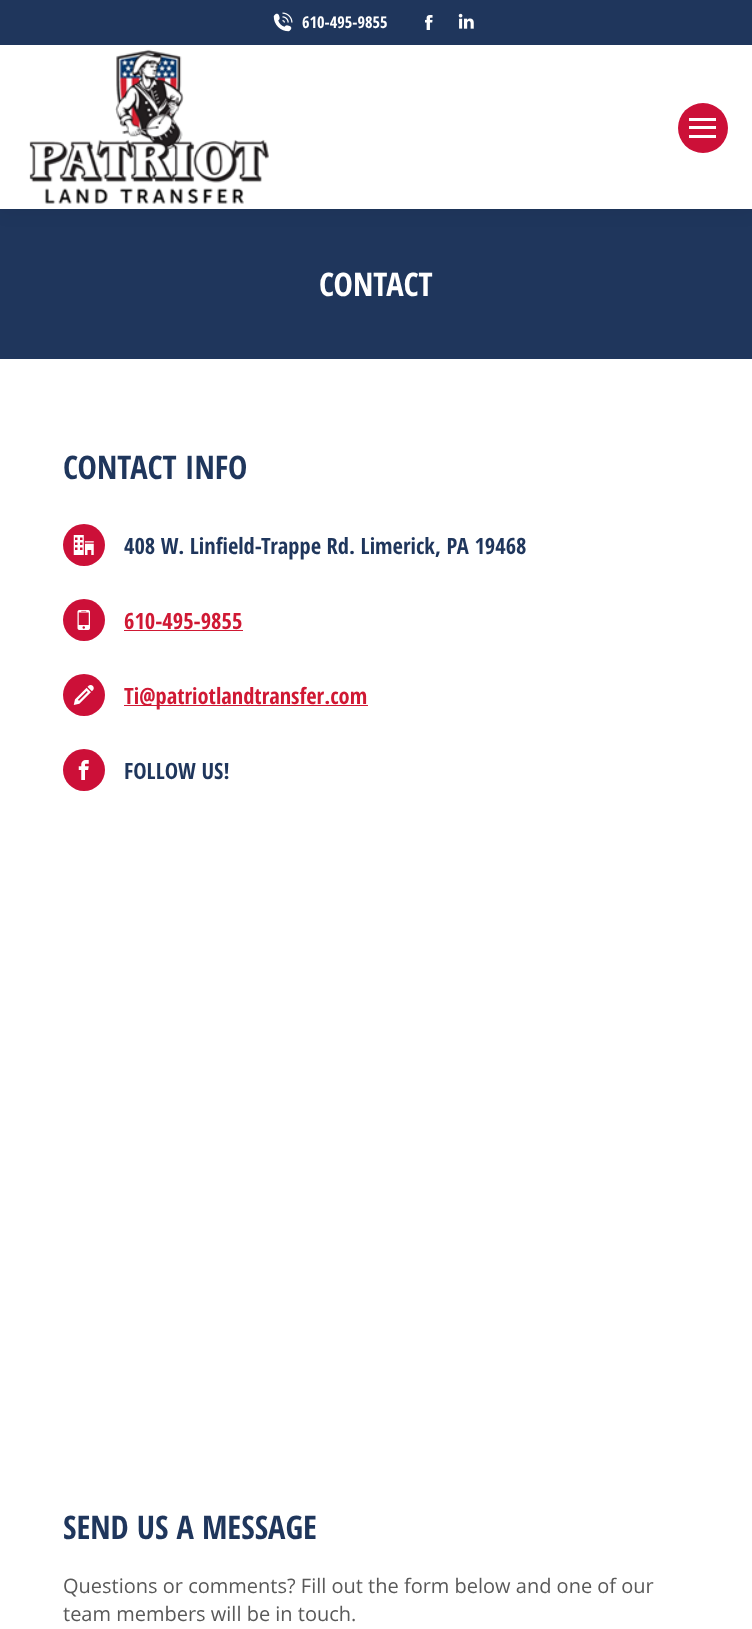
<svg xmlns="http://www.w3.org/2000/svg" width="752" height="1629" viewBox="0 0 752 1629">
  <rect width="100%" height="100%" fill="rgb(255,255,255)"/>
  <rect x="0" y="209" width="752" height="150" fill="rgb(31,54,92)"/>
  <rect x="-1" y="-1" width="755" height="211" fill="rgba(0,0,0,0.07)" filter="blur(9.5px)"/>
  <rect x="0" y="45" width="752" height="164" fill="rgb(255,255,255)"/>
  <rect x="0" y="0" width="752" height="45" fill="rgb(31,54,92)"/>
  <image x="273" y="12" width="20" height="20" href="pic1.png"/>
  <text x="302" y="28" font-family="Open Sans Condensed" font-size="16.25" font-weight="bold" fill="rgb(255,255,255)">610-495-9855</text>
  <image x="425" y="15" width="8" height="15" href="pic2.png"/>
  <image x="458" y="13" width="16" height="16" href="pic3.png"/>
  <image x="29" y="49" width="240" height="155" href="pic4.png"/>
  <circle cx="703" cy="128" r="25" fill="rgb(204,16,56)"/>
  <rect x="689" y="118" width="27" height="3" fill="rgb(255,255,255)"/>
  <rect x="689" y="126" width="27" height="3" fill="rgb(255,255,255)"/>
  <rect x="689" y="135" width="27" height="3" fill="rgb(255,255,255)"/>
  <text x="319" y="296" font-family="Open Sans Condensed" font-size="32.5" font-weight="bold" fill="rgb(255,255,255)">CONTACT</text>
  <text x="63" y="479" font-family="Open Sans Condensed" font-size="32.5" font-weight="bold" fill="rgb(31,54,92)">CONTACT INFO</text>
  <circle cx="84" cy="545" r="21" fill="rgb(204,16,56)"/>
  <image x="73" y="535" width="21" height="20" href="pic5.png"/>
  <text x="124" y="554" font-family="Open Sans Condensed" font-size="22.5" font-weight="bold" fill="rgb(31,54,92)">408 W. Linfield-Trappe Rd. Limerick, PA 19468</text>
  <circle cx="84" cy="620" r="21" fill="rgb(204,16,56)"/>
  <image x="77" y="610" width="13" height="20" href="pic6.png"/>
  <text x="124" y="629" font-family="Open Sans Condensed" font-size="22.5" font-weight="bold" fill="rgb(208,25,52)">610-495-9855</text>
  <rect x="124" y="630" width="119" height="1" fill="rgb(208,25,52)"/>
  <circle cx="84" cy="695" r="21" fill="rgb(204,16,56)"/>
  <image x="73" y="685" width="21" height="20" href="pic7.png"/>
  <rect x="124" y="705" width="244" height="1" fill="rgb(208,25,52)"/>
  <text x="124" y="704" font-family="Open Sans Condensed" font-size="22.5" font-weight="bold" fill="rgb(208,25,52)">Ti@patriotlandtransfer.com</text>
  <circle cx="84" cy="770" r="21" fill="rgb(204,16,56)"/>
  <image x="78" y="760" width="11" height="20" href="pic8.png"/>
  <text x="124" y="779" font-family="Open Sans Condensed" font-size="22.5" font-weight="bold" fill="rgb(31,54,92)">FOLLOW US!</text>
  <text x="63" y="1539" font-family="Open Sans Condensed" font-size="32.5" font-weight="bold" fill="rgb(31,54,92)">SEND US A MESSAGE</text>
  <g font-family="Open Sans" font-size="20" fill="rgb(89,89,89)">
    <text>
      <tspan x="63" y="1593">Questions or comments? Fill out the form below and one of our</tspan>
      <tspan x="63" y="1621">team members will be in touch.</tspan>
    </text>
  </g>
</svg>
